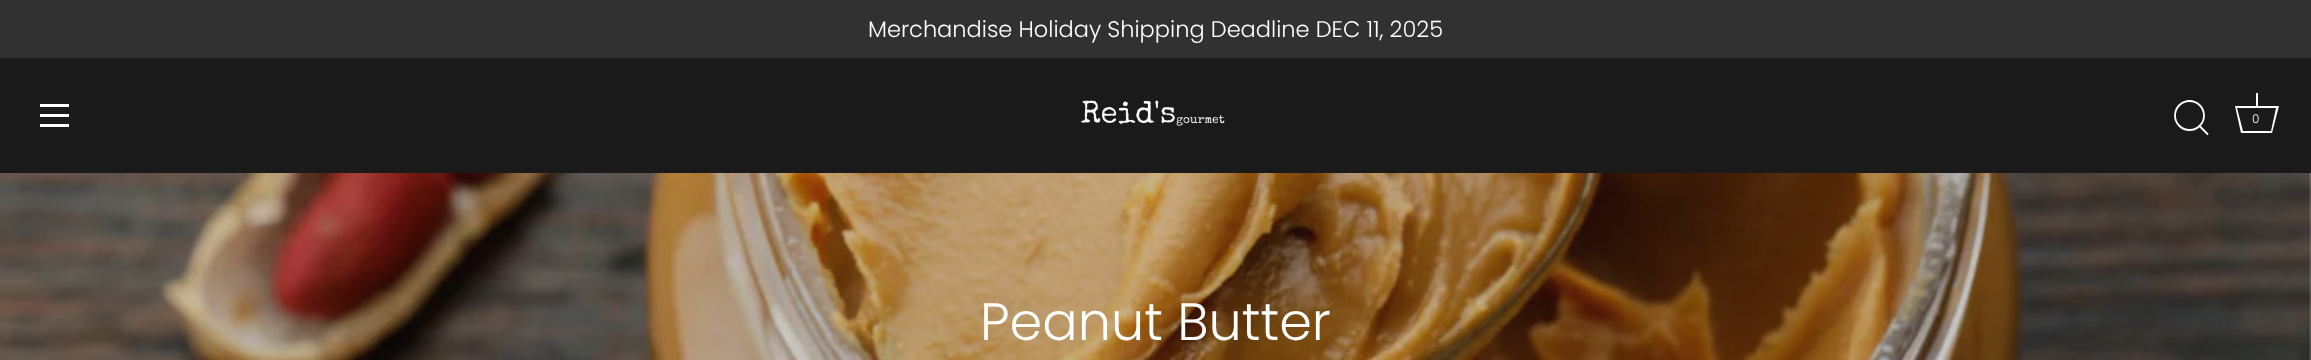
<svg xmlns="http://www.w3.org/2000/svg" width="2311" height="360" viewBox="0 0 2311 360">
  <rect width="100%" height="100%" fill="rgb(255,255,255)"/>
  <rect x="0" y="58" width="2311" height="115" fill="rgb(26,26,26)"/>
  <rect x="0" y="0" width="2311" height="58" fill="rgb(49,49,49)"/>
  <text x="868" y="37" font-family="Poppins" font-size="22.5" font-weight="300" fill="rgb(255,255,255)">Merchandise Holiday Shipping Deadline DEC 11, 2025</text>
  <rect x="40" y="104" width="29" height="3" fill="rgb(255,255,255)"/>
  <rect x="40" y="114" width="29" height="3" fill="rgb(255,255,255)"/>
  <rect x="40" y="124" width="29" height="3" fill="rgb(255,255,255)"/>
  <image x="1081" y="100" width="144" height="26" href="pic1.png"/>
  <circle cx="2189.5" cy="115.5" r="14.5" fill="none" stroke="rgb(255,255,255)" stroke-width="1.8"/>
  <path d="M2207.5 134L2199.5 126" fill="none" stroke="rgb(255,255,255)" stroke-width="1.8" stroke-linecap="round" stroke-linejoin="round"/>
  <rect x="2256" y="93" width="2" height="13" fill="rgb(255,255,255)"/>
  <path d="M2276 108L2271 131H2243L2237 108H2276M2279 106H2235L2241 133H2272Z" fill="rgb(255,255,255)"/>
  <text x="2252" y="123" font-family="Poppins" font-size="12" font-weight="300" fill="rgb(255,255,255)">0</text>
  <image x="0" y="173" width="2311" height="187" href="pic2.png"/>
  <text x="980" y="340" font-family="Poppins" font-size="52.5" font-weight="300" fill="rgb(255,255,255)">Peanut Butter</text>
</svg>
